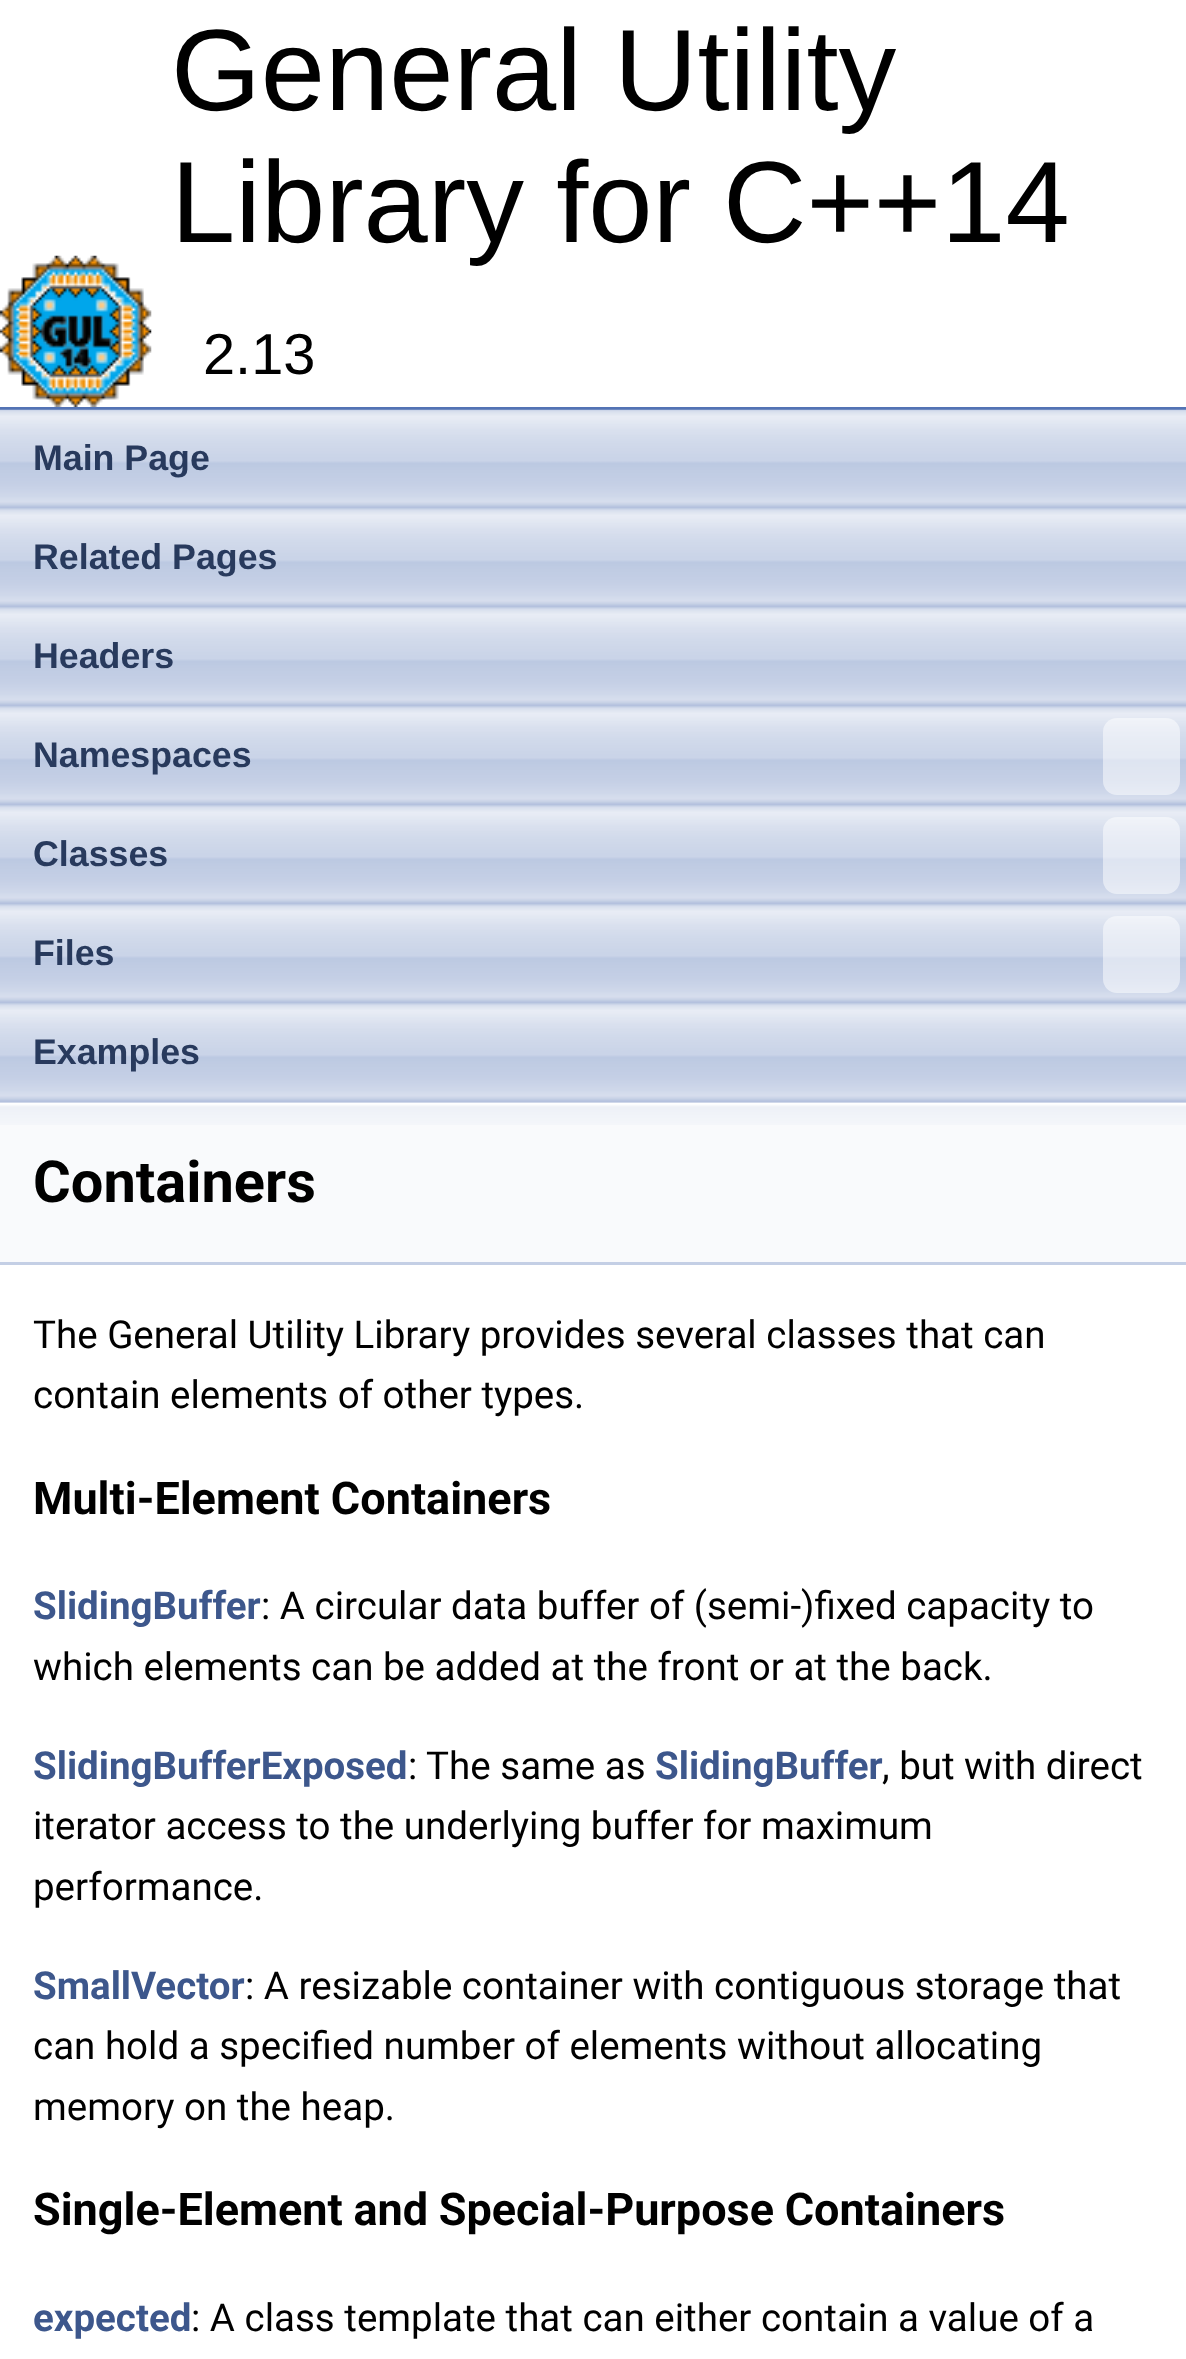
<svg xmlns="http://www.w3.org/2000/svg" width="1186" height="2359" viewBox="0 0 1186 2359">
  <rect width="100%" height="100%" fill="rgb(255,255,255)"/>
  <rect x="0" y="407" width="1186" height="3" fill="rgb(83,115,180)"/>
  <image x="0" y="255" width="152" height="152" href="pic1.png"/>
  <g font-family="Liberation Sans" font-size="115.5" fill="rgb(0,0,0)">
    <text>
      <tspan x="171" y="110">General Utility</tspan>
      <tspan x="171" y="242">Library for C++14</tspan>
    </text>
  </g>
  <text x="203" y="374" font-family="Liberation Sans" font-size="57.75" fill="rgb(0,0,0)">2.13</text>
  <image x="0" y="409" width="1186" height="694" href="pic2.png"/>
  <g font-family="Liberation Sans" font-size="35.75" font-weight="bold" fill="rgb(40,58,93)">
    <text x="33" y="470">Main Page</text>
    <text x="33" y="569">Related Pages</text>
    <text x="33" y="668">Headers</text>
    <text x="33" y="767">Namespaces</text>
  </g>
  <rect x="1103" y="718" width="77" height="77" rx="14" fill="rgba(255,255,255,0.5)"/>
  <text x="33" y="866" font-family="Liberation Sans" font-size="35.75" font-weight="bold" fill="rgb(40,58,93)">Classes</text>
  <rect x="1103" y="817" width="77" height="77" rx="14" fill="rgba(255,255,255,0.5)"/>
  <text x="33" y="965" font-family="Liberation Sans" font-size="35.75" font-weight="bold" fill="rgb(40,58,93)">Files</text>
  <rect x="1103" y="916" width="77" height="77" rx="14" fill="rgba(255,255,255,0.5)"/>
  <text x="33" y="1064" font-family="Liberation Sans" font-size="35.75" font-weight="bold" fill="rgb(40,58,93)">Examples</text>
  <rect x="0" y="1125" width="1186" height="137" fill="rgb(249,250,252)"/>
  <image x="0" y="1103" width="1186" height="22" href="pic3.png"/>
  <rect x="0" y="1262" width="1186" height="3" fill="rgb(196,207,229)"/>
  <text x="33" y="1202" font-family="Roboto" font-size="57.75" font-weight="bold" fill="rgb(0,0,0)">Containers</text>
  <g font-family="Roboto" font-size="38.5" fill="rgb(0,0,0)">
    <text>
      <tspan x="33" y="1348">The General Utility Library provides several classes that can</tspan>
      <tspan x="33" y="1408">contain elements of other types.</tspan>
    </text>
  </g>
  <text x="33" y="1514" font-family="Roboto" font-size="45" font-weight="bold" fill="rgb(0,0,0)">Multi-Element Containers</text>
  <text x="33" y="1619" font-family="Roboto" font-size="38.5" font-weight="bold" fill="rgb(61,87,140)">SlidingBuffer</text>
  <g font-family="Roboto" font-size="38.5" fill="rgb(0,0,0)">
    <text x="261" y="1619">: A circular data buffer of (semi-)fixed capacity to</text>
    <text x="33" y="1680">which elements can be added at the front or at the back.</text>
  </g>
  <text x="33" y="1779" font-family="Roboto" font-size="38.5" font-weight="bold" fill="rgb(61,87,140)">SlidingBufferExposed</text>
  <text x="408" y="1779" font-family="Roboto" font-size="38.5" fill="rgb(0,0,0)">: The same as</text>
  <text x="655" y="1779" font-family="Roboto" font-size="38.5" font-weight="bold" fill="rgb(61,87,140)">SlidingBuffer</text>
  <g font-family="Roboto" font-size="38.5" fill="rgb(0,0,0)">
    <text x="882" y="1779">, but with direct</text>
    <text>
      <tspan x="33" y="1839">iterator access to the underlying buffer for maximum</tspan>
      <tspan x="33" y="1900">performance.</tspan>
    </text>
  </g>
  <text x="33" y="1999" font-family="Roboto" font-size="38.5" font-weight="bold" fill="rgb(61,87,140)">SmallVector</text>
  <g font-family="Roboto" font-size="38.5" fill="rgb(0,0,0)">
    <text x="245" y="1999">: A resizable container with contiguous storage that</text>
    <text>
      <tspan x="33" y="2059">can hold a specified number of elements without allocating</tspan>
      <tspan x="33" y="2120">memory on the heap.</tspan>
    </text>
  </g>
  <text x="33" y="2225" word-spacing="-0.5" font-family="Roboto" font-size="45" font-weight="bold" fill="rgb(0,0,0)">Single-Element and Special-Purpose Containers</text>
  <text x="33" y="2331" font-family="Roboto" font-size="38.5" font-weight="bold" fill="rgb(61,87,140)">expected</text>
  <text x="191" y="2331" font-family="Roboto" font-size="38.5" fill="rgb(0,0,0)">: A class template that can either contain a value of a</text>
</svg>
